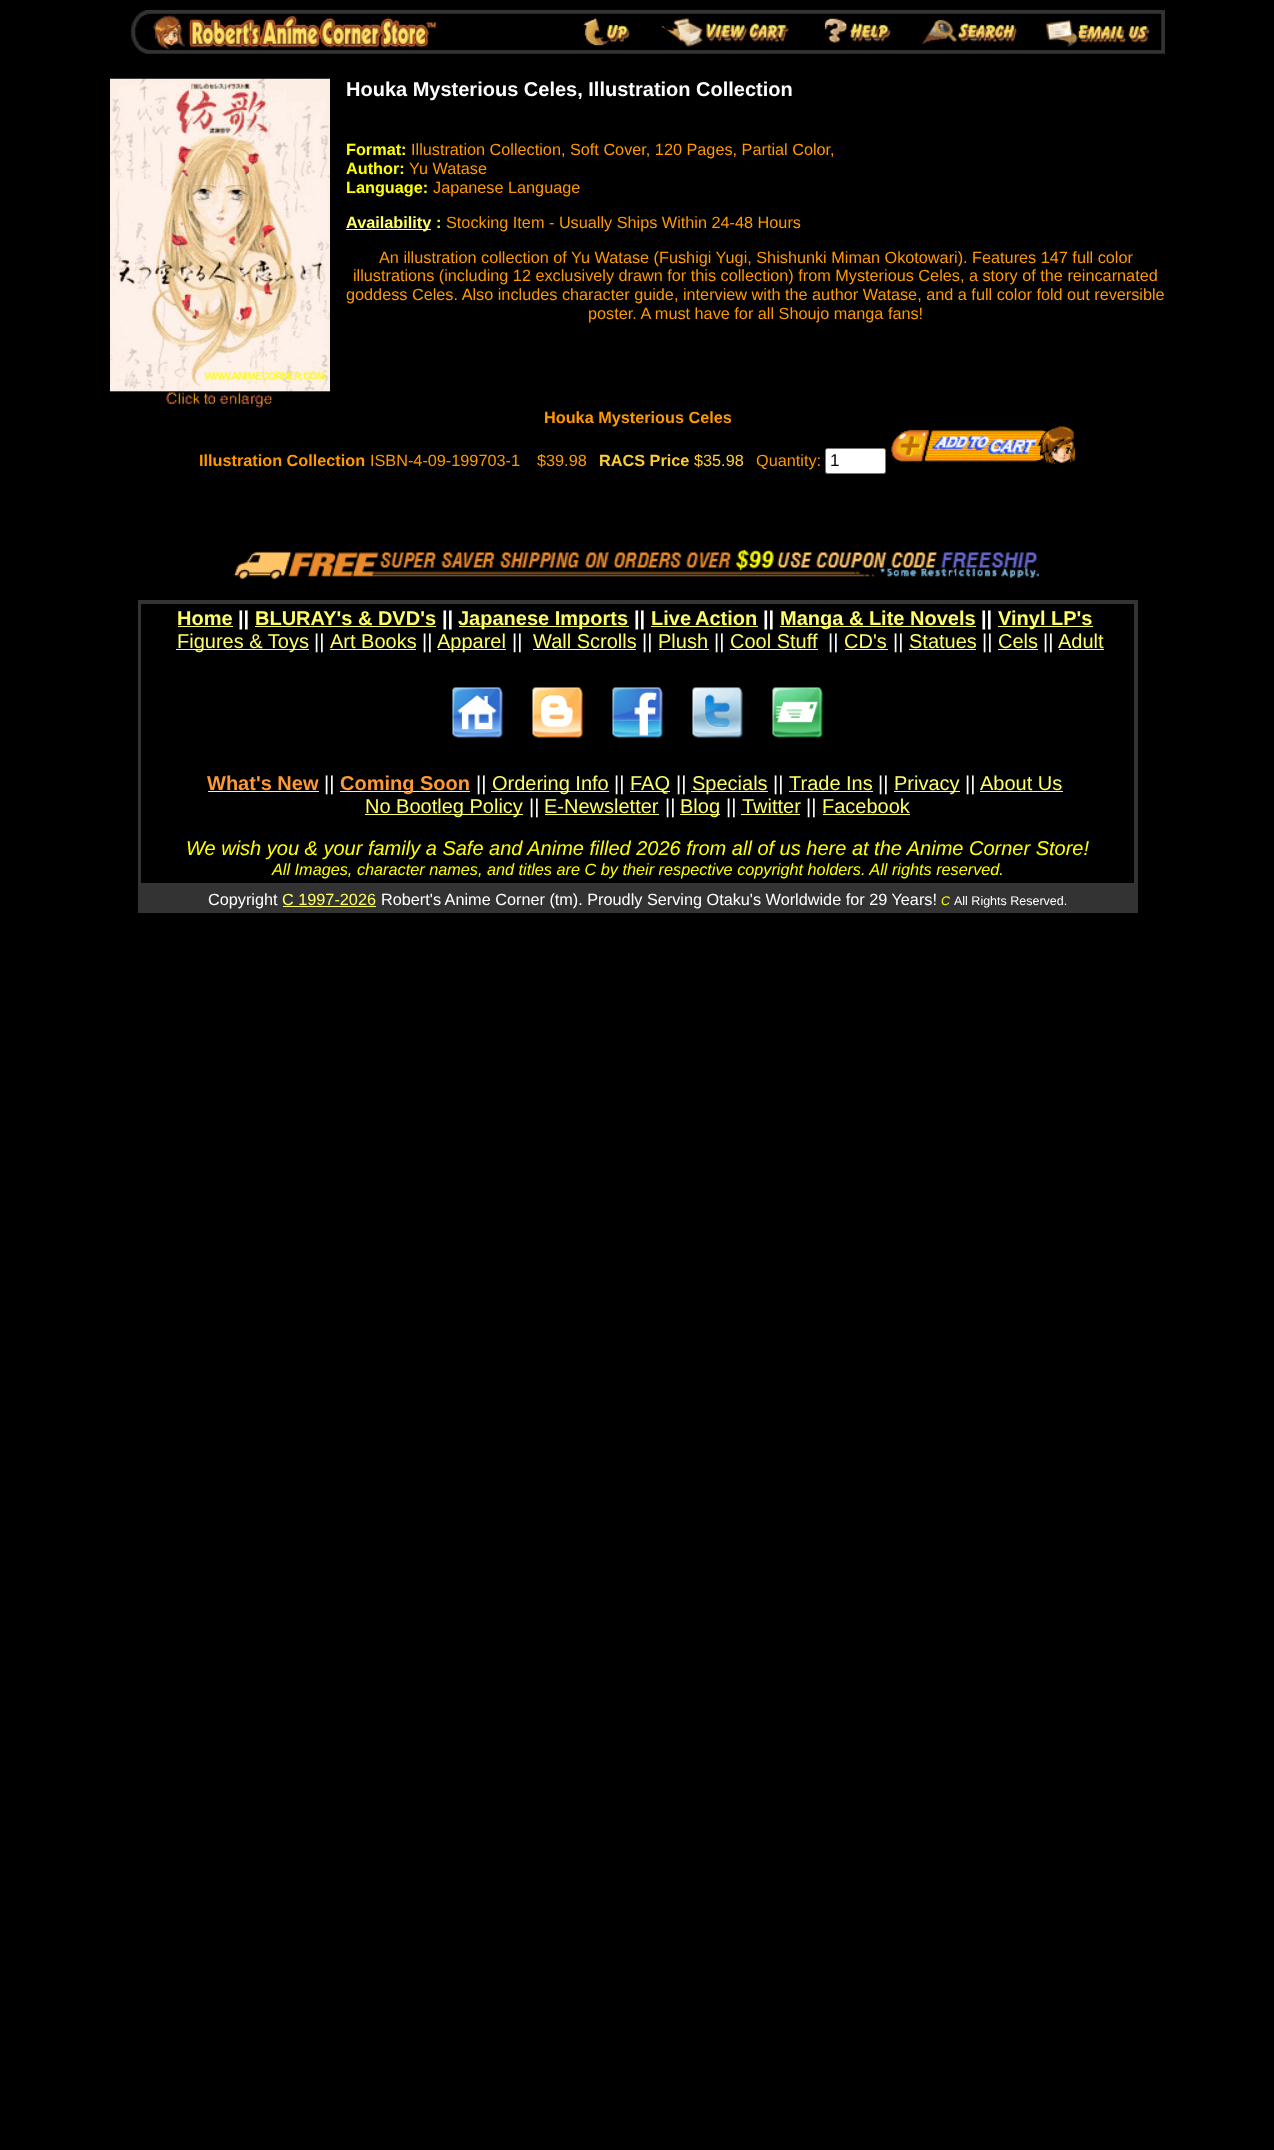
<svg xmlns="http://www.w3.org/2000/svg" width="1274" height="2150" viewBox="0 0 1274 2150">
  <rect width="100%" height="100%" fill="rgb(0,0,0)"/>
  <image x="130" y="10" width="1035" height="44" href="pic1.png"/>
  <image x="110" y="78" width="220" height="330" href="pic2.png"/>
  <text x="346" y="96" font-family="Liberation Sans" font-size="20" font-weight="bold" fill="rgb(255,255,255)">Houka Mysterious Celes, Illustration Collection</text>
  <text x="346" y="155" font-family="Liberation Sans" font-size="16.25" font-weight="bold" fill="rgb(255,255,0)">Format:</text>
  <text x="411" y="155" font-family="Liberation Sans" font-size="16.25" fill="rgb(255,153,0)">Illustration Collection, Soft Cover, 120 Pages, Partial Color,</text>
  <text x="346" y="174" font-family="Liberation Sans" font-size="16.25" font-weight="bold" fill="rgb(255,255,0)">Author:</text>
  <text x="409" y="174" font-family="Liberation Sans" font-size="16.25" fill="rgb(255,153,0)">Yu Watase</text>
  <text x="346" y="193" font-family="Liberation Sans" font-size="16.25" font-weight="bold" fill="rgb(255,255,0)">Language:</text>
  <text x="433" y="193" font-family="Liberation Sans" font-size="16.25" fill="rgb(255,153,0)">Japanese Language</text>
  <rect x="346" y="229" width="85" height="1" fill="rgb(255,255,102)"/>
  <text x="346" y="228" font-family="Liberation Sans" font-size="16.25" font-weight="bold" fill="rgb(255,255,102)">Availability</text>
  <text x="436" y="228" font-family="Liberation Sans" font-size="16.25" font-weight="bold" fill="rgb(255,255,0)">:</text>
  <g font-family="Liberation Sans" font-size="16.25" fill="rgb(255,153,0)">
    <text x="446" y="228">Stocking Item - Usually Ships Within 24-48 Hours</text>
    <text x="379" y="263">An illustration collection of Yu Watase (Fushigi Yugi, Shishunki Miman Okotowari). Features 147 full color</text>
    <text x="353" y="281">illustrations (including 12 exclusively drawn for this collection) from Mysterious Celes, a story of the reincarnated</text>
    <text x="346" y="300">goddess Celes. Also includes character guide, interview with the author Watase, and a full color fold out reversible</text>
    <text x="588" y="319">poster. A must have for all Shoujo manga fans!</text>
  </g>
  <g font-family="Liberation Sans" font-size="16.25" font-weight="bold" fill="rgb(255,153,0)">
    <text x="544" y="423">Houka Mysterious Celes</text>
    <text x="199" y="466">Illustration Collection</text>
  </g>
  <g font-family="Liberation Sans" font-size="16.25" fill="rgb(255,153,0)">
    <text x="370" y="466">ISBN-4-09-199703-1</text>
    <text x="537" y="466">$39.98</text>
  </g>
  <text x="599" y="466" font-family="Liberation Sans" font-size="16.25" font-weight="bold" fill="rgb(255,204,51)">RACS Price</text>
  <text x="694" y="466" font-family="Liberation Sans" font-size="16.25" fill="rgb(255,204,51)">$35.98</text>
  <text x="756" y="466" font-family="Liberation Sans" font-size="16.25" fill="rgb(255,153,0)">Quantity:</text>
  <rect x="825.5" y="448.5" width="60" height="25" rx="2" fill="rgb(255,255,255)" stroke="rgb(118,118,118)"/>
  <text x="830" y="466" font-family="Liberation Sans" font-size="17" fill="rgb(0,0,0)">1</text>
  <image x="891" y="426" width="185" height="38" href="pic3.png"/>
  <image x="233" y="549" width="806" height="30" href="pic4.png"/>
  <rect x="138" y="600" width="1000" height="313" fill="rgb(51,51,51)"/>
  <rect x="141" y="604" width="993" height="279" fill="rgb(0,0,0)"/>
  <text x="177" y="625" font-family="Liberation Sans" font-size="20" font-weight="bold" fill="rgb(255,255,102)">Home</text>
  <rect x="178" y="626" width="55" height="1" fill="rgb(255,255,102)"/>
  <text x="238" y="625" font-family="Liberation Sans" font-size="20" font-weight="bold" fill="rgb(255,255,255)">||</text>
  <text x="255" y="625" font-family="Liberation Sans" font-size="20" font-weight="bold" fill="rgb(255,255,102)">BLURAY's &amp; DVD's</text>
  <rect x="255" y="626" width="181" height="1" fill="rgb(255,255,102)"/>
  <text x="442" y="625" font-family="Liberation Sans" font-size="20" font-weight="bold" fill="rgb(255,255,255)">||</text>
  <rect x="459" y="626" width="170" height="1" fill="rgb(255,255,102)"/>
  <text x="458" y="625" font-family="Liberation Sans" font-size="20" font-weight="bold" fill="rgb(255,255,102)">Japanese Imports</text>
  <text x="634" y="625" font-family="Liberation Sans" font-size="20" font-weight="bold" fill="rgb(255,255,255)">||</text>
  <text x="651" y="625" font-family="Liberation Sans" font-size="20" font-weight="bold" fill="rgb(255,255,102)">Live</text>
  <rect x="651" y="626" width="107" height="1" fill="rgb(255,255,102)"/>
  <text x="695" y="625" font-family="Liberation Sans" font-size="20" font-weight="bold" fill="rgb(255,255,102)">Action</text>
  <text x="763" y="625" font-family="Liberation Sans" font-size="20" font-weight="bold" fill="rgb(255,255,255)">||</text>
  <rect x="780" y="626" width="196" height="1" fill="rgb(255,255,102)"/>
  <text x="780" y="625" font-family="Liberation Sans" font-size="20" font-weight="bold" fill="rgb(255,255,102)">Manga &amp; Lite Novels</text>
  <text x="981" y="625" font-family="Liberation Sans" font-size="20" font-weight="bold" fill="rgb(255,255,255)">||</text>
  <rect x="998" y="626" width="95" height="1" fill="rgb(255,255,102)"/>
  <text x="998" y="625" font-family="Liberation Sans" font-size="20" font-weight="bold" fill="rgb(255,255,102)">Vinyl LP's</text>
  <rect x="176" y="649" width="133" height="1" fill="rgb(255,255,102)"/>
  <text x="177" y="648" font-family="Liberation Sans" font-size="20" fill="rgb(255,255,102)">Figures &amp; Toys</text>
  <text x="314" y="648" font-family="Liberation Sans" font-size="20" fill="rgb(255,255,255)">||</text>
  <text x="330" y="648" font-family="Liberation Sans" font-size="20" fill="rgb(255,255,102)">Art Books</text>
  <rect x="330" y="649" width="86" height="1" fill="rgb(255,255,102)"/>
  <text x="422" y="648" font-family="Liberation Sans" font-size="20" fill="rgb(255,255,255)">||</text>
  <rect x="438" y="649" width="68" height="1" fill="rgb(255,255,102)"/>
  <text x="437" y="648" font-family="Liberation Sans" font-size="20" fill="rgb(255,255,102)">Apparel</text>
  <text x="512" y="648" font-family="Liberation Sans" font-size="20" fill="rgb(255,255,255)">||</text>
  <text x="533" y="648" font-family="Liberation Sans" font-size="20" fill="rgb(255,255,102)">Wall Scrolls</text>
  <rect x="533" y="649" width="103" height="1" fill="rgb(255,255,102)"/>
  <text x="642" y="648" font-family="Liberation Sans" font-size="20" fill="rgb(255,255,255)">||</text>
  <text x="658" y="648" font-family="Liberation Sans" font-size="20" fill="rgb(255,255,102)">Plush</text>
  <rect x="659" y="649" width="50" height="1" fill="rgb(255,255,102)"/>
  <text x="714" y="648" font-family="Liberation Sans" font-size="20" fill="rgb(255,255,255)">||</text>
  <text x="730" y="648" font-family="Liberation Sans" font-size="20" fill="rgb(255,255,102)">Cool Stuff</text>
  <rect x="730" y="649" width="88" height="1" fill="rgb(255,255,102)"/>
  <text x="828" y="648" font-family="Liberation Sans" font-size="20" fill="rgb(255,255,255)">||</text>
  <text x="844" y="648" font-family="Liberation Sans" font-size="20" fill="rgb(255,255,102)">CD's</text>
  <rect x="845" y="649" width="43" height="1" fill="rgb(255,255,102)"/>
  <text x="893" y="648" font-family="Liberation Sans" font-size="20" fill="rgb(255,255,255)">||</text>
  <text x="909" y="648" font-family="Liberation Sans" font-size="20" fill="rgb(255,255,102)">Statues</text>
  <rect x="909" y="649" width="67" height="1" fill="rgb(255,255,102)"/>
  <text x="982" y="648" font-family="Liberation Sans" font-size="20" fill="rgb(255,255,255)">||</text>
  <text x="998" y="648" font-family="Liberation Sans" font-size="20" fill="rgb(255,255,102)">Cels</text>
  <rect x="998" y="649" width="40" height="1" fill="rgb(255,255,102)"/>
  <text x="1043" y="648" font-family="Liberation Sans" font-size="20" fill="rgb(255,255,255)">||</text>
  <text x="1058" y="648" font-family="Liberation Sans" font-size="20" fill="rgb(255,255,102)">Adult</text>
  <rect x="1059" y="649" width="45" height="1" fill="rgb(255,255,102)"/>
  <image x="452" y="687" width="51" height="51" href="pic5.png"/>
  <image x="532" y="687" width="51" height="51" href="pic6.png"/>
  <image x="612" y="687" width="51" height="51" href="pic7.png"/>
  <image x="692" y="687" width="51" height="51" href="pic8.png"/>
  <image x="772" y="687" width="51" height="51" href="pic9.png"/>
  <text x="207" y="790" font-family="Liberation Sans" font-size="20" font-weight="bold" fill="rgb(255,153,51)">What's New</text>
  <rect x="208" y="791" width="111" height="1" fill="rgb(255,255,102)"/>
  <text x="324" y="790" font-family="Liberation Sans" font-size="20" fill="rgb(255,255,255)">||</text>
  <rect x="340" y="791" width="130" height="1" fill="rgb(255,255,102)"/>
  <text x="340" y="790" font-family="Liberation Sans" font-size="20" font-weight="bold" fill="rgb(255,153,51)">Coming Soon</text>
  <text x="476" y="790" font-family="Liberation Sans" font-size="20" fill="rgb(255,255,255)">||</text>
  <rect x="491" y="791" width="118" height="1" fill="rgb(255,255,102)"/>
  <text x="492" y="790" font-family="Liberation Sans" font-size="20" fill="rgb(255,255,102)">Ordering Info</text>
  <text x="614" y="790" font-family="Liberation Sans" font-size="20" fill="rgb(255,255,255)">||</text>
  <rect x="630" y="791" width="40" height="1" fill="rgb(255,255,102)"/>
  <text x="630" y="790" font-family="Liberation Sans" font-size="20" fill="rgb(255,255,102)">FAQ</text>
  <text x="676" y="790" font-family="Liberation Sans" font-size="20" fill="rgb(255,255,255)">||</text>
  <rect x="691" y="791" width="77" height="1" fill="rgb(255,255,102)"/>
  <text x="692" y="790" font-family="Liberation Sans" font-size="20" fill="rgb(255,255,102)">Specials</text>
  <text x="773" y="790" font-family="Liberation Sans" font-size="20" fill="rgb(255,255,255)">||</text>
  <text x="789" y="790" font-family="Liberation Sans" font-size="20" fill="rgb(255,255,102)">Trade Ins</text>
  <rect x="789" y="791" width="84" height="1" fill="rgb(255,255,102)"/>
  <text x="878" y="790" font-family="Liberation Sans" font-size="20" fill="rgb(255,255,255)">||</text>
  <rect x="894" y="791" width="66" height="1" fill="rgb(255,255,102)"/>
  <text x="894" y="790" font-family="Liberation Sans" font-size="20" fill="rgb(255,255,102)">Privacy</text>
  <text x="965" y="790" font-family="Liberation Sans" font-size="20" fill="rgb(255,255,255)">||</text>
  <text x="980" y="790" font-family="Liberation Sans" font-size="20" fill="rgb(255,255,102)">About Us</text>
  <rect x="980" y="791" width="83" height="1" fill="rgb(255,255,102)"/>
  <rect x="365" y="814" width="158" height="1" fill="rgb(255,255,102)"/>
  <text x="365" y="813" font-family="Liberation Sans" font-size="20" fill="rgb(255,255,102)">No Bootleg Policy</text>
  <text x="529" y="813" font-family="Liberation Sans" font-size="20" fill="rgb(255,255,255)">||</text>
  <text x="544" y="813" font-family="Liberation Sans" font-size="20" fill="rgb(255,255,102)">E-Newsletter</text>
  <rect x="545" y="814" width="114" height="1" fill="rgb(255,255,102)"/>
  <text x="665" y="813" font-family="Liberation Sans" font-size="20" fill="rgb(255,255,255)">||</text>
  <rect x="680" y="814" width="40" height="1" fill="rgb(255,255,102)"/>
  <text x="680" y="813" font-family="Liberation Sans" font-size="20" fill="rgb(255,255,102)">Blog</text>
  <text x="726" y="813" font-family="Liberation Sans" font-size="20" fill="rgb(255,255,255)">||</text>
  <text x="742" y="813" font-family="Liberation Sans" font-size="20" fill="rgb(255,255,102)">Twitter</text>
  <rect x="741" y="814" width="59" height="1" fill="rgb(255,255,102)"/>
  <text x="806" y="813" font-family="Liberation Sans" font-size="20" fill="rgb(255,255,255)">||</text>
  <text x="822" y="813" font-family="Liberation Sans" font-size="20" fill="rgb(255,255,102)">Facebook</text>
  <rect x="823" y="814" width="87" height="1" fill="rgb(255,255,102)"/>
  <text x="186" y="855" font-family="Liberation Sans" font-size="20" font-style="italic" fill="rgb(255,255,0)">We wish you &amp; your family a Safe and Anime filled 2026 from all of us here at the Anime Corner Store!</text>
  <text x="272" y="875" font-family="Liberation Sans" font-size="16.25" font-style="italic" fill="rgb(255,255,0)">All Images, character names, and titles are C by their respective copyright holders. All rights reserved.</text>
  <text x="208" y="905" font-family="Liberation Sans" font-size="16.25" fill="rgb(255,255,255)">Copyright</text>
  <text x="282" y="905" font-family="Liberation Sans" font-size="16.25" fill="rgb(255,255,102)">C 1997-2026</text>
  <rect x="283" y="906" width="93" height="1" fill="rgb(255,255,102)"/>
  <text x="381" y="905" font-family="Liberation Sans" font-size="16.25" fill="rgb(255,255,255)">Robert's Anime Corner (tm). Proudly Serving Otaku's Worldwide for 29 Years!</text>
  <text x="941" y="905" font-family="Liberation Sans" font-size="12.5" font-style="italic" fill="rgb(255,255,0)">C</text>
  <text x="954" y="905" font-family="Liberation Sans" font-size="12.5" fill="rgb(255,255,255)">All Rights Reserved.</text>
</svg>
